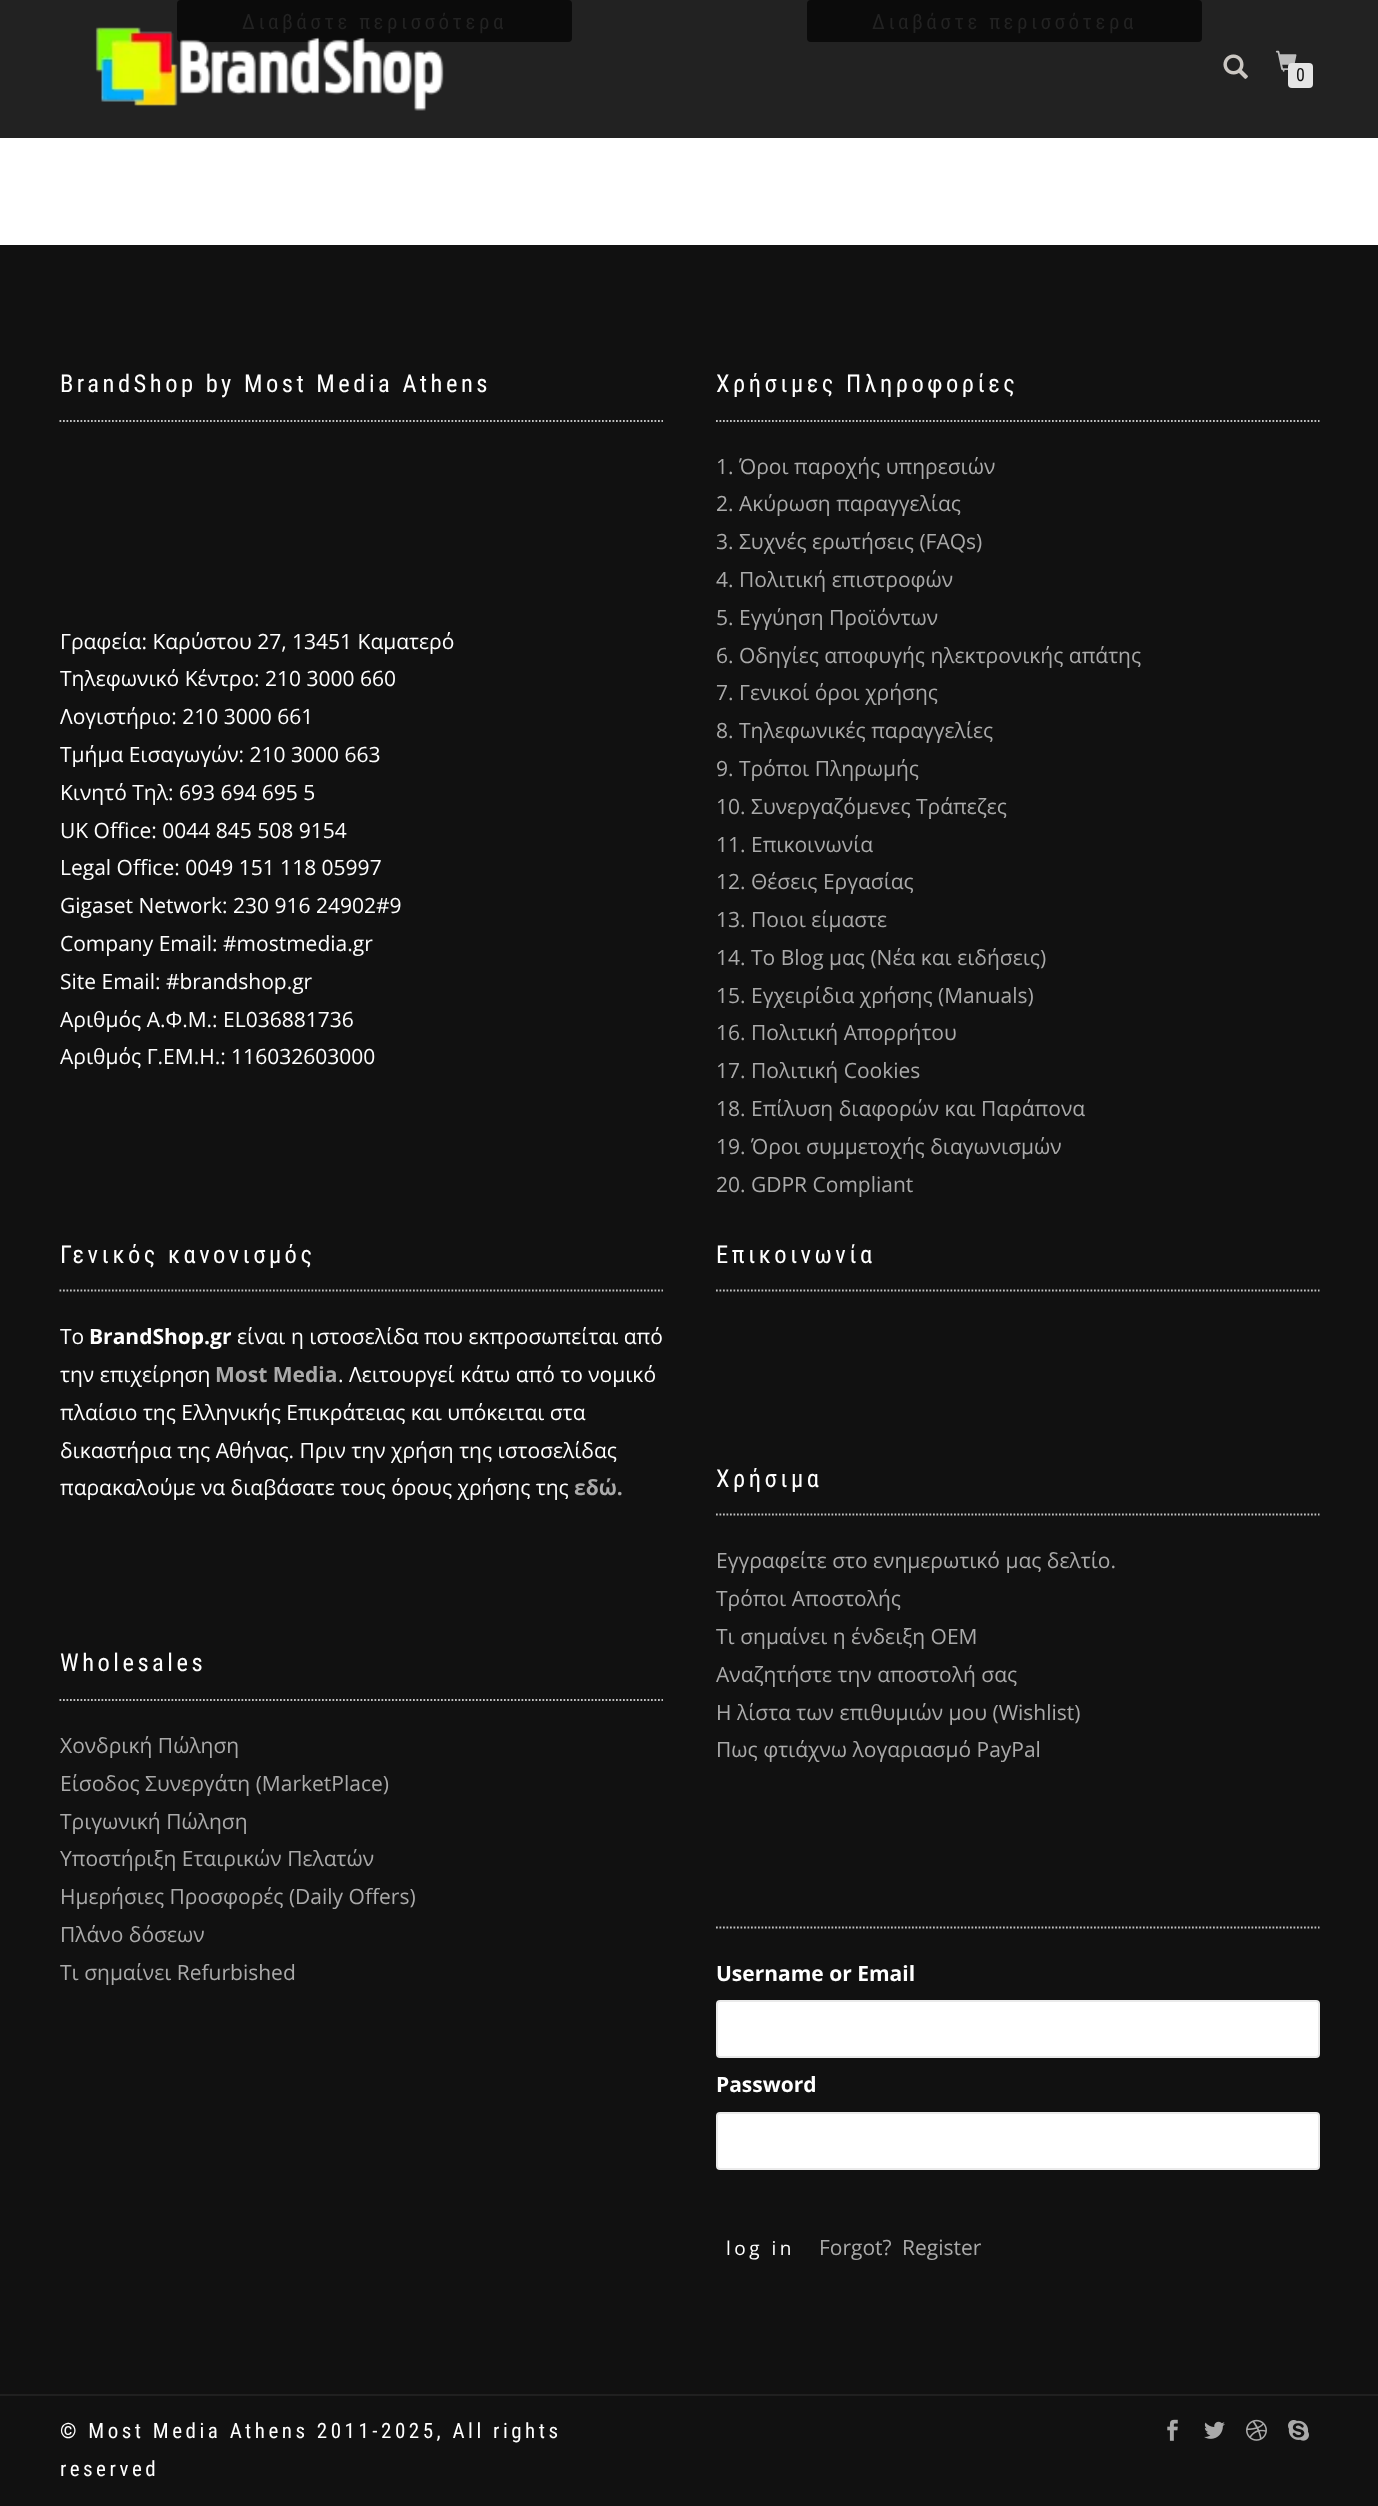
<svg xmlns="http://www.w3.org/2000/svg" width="1378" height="2506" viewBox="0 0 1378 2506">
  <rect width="100%" height="100%" fill="rgb(255,255,255)"/>
  <rect x="0" y="0" width="1378" height="138" fill="rgb(34,34,34)"/>
  <rect x="177" y="0" width="395" height="42" rx="4" fill="rgb(11,11,11)"/>
  <text x="242" y="29" font-family="Roboto Condensed" font-size="21" letter-spacing="3.5" fill="rgb(34,34,34)">Διαβάστε περισσότερα</text>
  <rect x="807" y="0" width="395" height="42" rx="4" fill="rgb(11,11,11)"/>
  <text x="872" y="29" font-family="Roboto Condensed" font-size="21" letter-spacing="3.5" fill="rgb(34,34,34)">Διαβάστε περισσότερα</text>
  <image x="95" y="27" width="349" height="84" href="pic1.png"/>
  <image x="1223" y="54" width="25" height="25" href="pic2.png"/>
  <image x="1275" y="50" width="22" height="22" href="pic3.png"/>
  <rect x="1288" y="63" width="25" height="25" rx="4" fill="rgb(229,229,229)"/>
  <text x="1296" y="81" font-family="Roboto Condensed" font-size="18" fill="rgb(17,17,17)">0</text>
  <rect x="0" y="245" width="1378" height="2149" fill="rgb(17,17,17)"/>
  <path d="M59.5 421H663" fill="none" stroke="rgb(194,194,194)" stroke-width="1.8" stroke-dasharray="1.75 1.75"/>
  <text x="60" y="392" font-family="Roboto Condensed" font-size="24.5" letter-spacing="3.5" fill="rgb(255,255,255)">BrandShop by Most Media Athens</text>
  <g font-family="Open Sans" font-size="21" fill="rgb(255,255,255)">
    <text>
      <tspan x="60" y="649">Γραφεία: Καρύστου 27, 13451 Καματερό</tspan>
      <tspan x="60" y="686">Τηλεφωνικό Κέντρο: 210 3000 660</tspan>
      <tspan x="60" y="724">Λογιστήριο: 210 3000 661</tspan>
      <tspan x="60" y="762">Τμήμα Εισαγωγών: 210 3000 663</tspan>
      <tspan x="60" y="800">Κινητό Τηλ: 693 694 695 5</tspan>
      <tspan x="60" y="838">UK Office: 0044 845 508 9154</tspan>
      <tspan x="60" y="875">Legal Office: 0049 151 118 05997</tspan>
      <tspan x="60" y="913">Gigaset Network: 230 916 24902#9</tspan>
      <tspan x="60" y="951">Company Email: #mostmedia.gr</tspan>
      <tspan x="60" y="989">Site Email: #brandshop.gr</tspan>
      <tspan x="60" y="1027">Αριθμός Α.Φ.Μ.: EL036881736</tspan>
      <tspan x="60" y="1064">Αριθμός Γ.ΕΜ.Η.: 116032603000</tspan>
    </text>
  </g>
  <path d="M716 421H1319.5" fill="none" stroke="rgb(194,194,194)" stroke-width="1.8" stroke-dasharray="1.75 1.75"/>
  <text x="716" y="392" font-family="Roboto Condensed" font-size="24.5" letter-spacing="3.5" fill="rgb(255,255,255)">Χρήσιμες Πληροφορίες</text>
  <g font-family="Open Sans" font-size="21" fill="rgb(170,170,170)">
    <text>
      <tspan x="716" y="474">1. Όροι παροχής υπηρεσιών</tspan>
      <tspan x="716" y="511">2. Ακύρωση παραγγελίας</tspan>
      <tspan x="716" y="549">3. Συχνές ερωτήσεις (FAQs)</tspan>
      <tspan x="716" y="587">4. Πολιτική επιστροφών</tspan>
      <tspan x="716" y="625">5. Εγγύηση Προϊόντων</tspan>
      <tspan x="716" y="663">6. Οδηγίες αποφυγής ηλεκτρονικής απάτης</tspan>
      <tspan x="716" y="700">7. Γενικοί όροι χρήσης</tspan>
      <tspan x="716" y="738">8. Τηλεφωνικές παραγγελίες</tspan>
      <tspan x="716" y="776">9. Τρόποι Πληρωμής</tspan>
      <tspan x="716" y="814">10. Συνεργαζόμενες Τράπεζες</tspan>
      <tspan x="716" y="852">11. Επικοινωνία</tspan>
      <tspan x="716" y="889">12. Θέσεις Εργασίας</tspan>
      <tspan x="716" y="927">13. Ποιοι είμαστε</tspan>
      <tspan x="716" y="965">14. Το Blog μας (Νέα και ειδήσεις)</tspan>
      <tspan x="716" y="1003">15. Εγχειρίδια χρήσης (Manuals)</tspan>
      <tspan x="716" y="1040">16. Πολιτική Απορρήτου</tspan>
      <tspan x="716" y="1078">17. Πολιτική Cookies</tspan>
      <tspan x="716" y="1116">18. Επίλυση διαφορών και Παράπονα</tspan>
      <tspan x="716" y="1154">19. Όροι συμμετοχής διαγωνισμών</tspan>
      <tspan x="716" y="1192">20. GDPR Compliant</tspan>
    </text>
  </g>
  <path d="M59.5 1290.5H663" fill="none" stroke="rgb(194,194,194)" stroke-width="1.8" stroke-dasharray="1.75 1.75"/>
  <text x="60" y="1263" font-family="Roboto Condensed" font-size="24.5" letter-spacing="3.5" fill="rgb(255,255,255)">Γενικός κανονισμός</text>
  <text x="60" y="1344" font-family="Open Sans" font-size="21" fill="rgb(255,255,255)">Το</text>
  <text x="89" y="1344" font-family="Open Sans" font-size="21" font-weight="bold" fill="rgb(255,255,255)">BrandShop.gr</text>
  <g font-family="Open Sans" font-size="21" fill="rgb(255,255,255)">
    <text x="237" y="1344">είναι η ιστοσελίδα που εκπροσωπείται από</text>
    <text x="60" y="1382">την επιχείρηση</text>
  </g>
  <text x="215" y="1382" font-family="Open Sans" font-size="21" font-weight="bold" fill="rgb(170,170,170)">Most Media</text>
  <g font-family="Open Sans" font-size="21" fill="rgb(255,255,255)">
    <text x="338" y="1382">. Λειτουργεί κάτω από το νομικό</text>
    <text>
      <tspan x="60" y="1420">πλαίσιο της Ελληνικής Επικράτειας και υπόκειται στα</tspan>
      <tspan x="60" y="1458">δικαστήρια της Αθήνας. Πριν την χρήση της ιστοσελίδας</tspan>
      <tspan x="60" y="1495">παρακαλούμε να διαβάσατε τους όρους χρήσης της</tspan>
    </text>
  </g>
  <text x="574" y="1495" font-family="Open Sans" font-size="21" font-weight="bold" fill="rgb(170,170,170)">εδώ.</text>
  <path d="M59.5 1700H663" fill="none" stroke="rgb(194,194,194)" stroke-width="1.8" stroke-dasharray="1.75 1.75"/>
  <text x="60" y="1671" font-family="Roboto Condensed" font-size="24.5" letter-spacing="3.5" fill="rgb(255,255,255)">Wholesales</text>
  <g font-family="Open Sans" font-size="21" fill="rgb(170,170,170)">
    <text>
      <tspan x="60" y="1753">Χονδρική Πώληση</tspan>
      <tspan x="60" y="1791">Είσοδος Συνεργάτη (MarketPlace)</tspan>
      <tspan x="60" y="1829">Τριγωνική Πώληση</tspan>
      <tspan x="60" y="1866">Υποστήριξη Εταιρικών Πελατών</tspan>
      <tspan x="60" y="1904">Ημερήσιες Προσφορές (Daily Offers)</tspan>
      <tspan x="60" y="1942">Πλάνο δόσεων</tspan>
      <tspan x="60" y="1980">Τι σημαίνει Refurbished</tspan>
    </text>
  </g>
  <path d="M716 1290.5H1319.5" fill="none" stroke="rgb(194,194,194)" stroke-width="1.8" stroke-dasharray="1.75 1.75"/>
  <text x="716" y="1263" font-family="Roboto Condensed" font-size="24.5" letter-spacing="3.5" fill="rgb(255,255,255)">Επικοινωνία</text>
  <path d="M716 1514.5H1319.5" fill="none" stroke="rgb(194,194,194)" stroke-width="1.8" stroke-dasharray="1.75 1.75"/>
  <text x="716" y="1487" font-family="Roboto Condensed" font-size="24.5" letter-spacing="3.5" fill="rgb(255,255,255)">Χρήσιμα</text>
  <g font-family="Open Sans" font-size="21" fill="rgb(170,170,170)">
    <text>
      <tspan x="716" y="1568">Εγγραφείτε στο ενημερωτικό μας δελτίο.</tspan>
      <tspan x="716" y="1606">Τρόποι Αποστολής</tspan>
      <tspan x="716" y="1644">Τι σημαίνει η ένδειξη ΟΕΜ</tspan>
      <tspan x="716" y="1682">Αναζητήστε την αποστολή σας</tspan>
      <tspan x="716" y="1720">Η λίστα των επιθυμιών μου (Wishlist)</tspan>
      <tspan x="716" y="1757">Πως φτιάχνω λογαριασμό PayPal</tspan>
    </text>
  </g>
  <path d="M716 1927.5H1319.5" fill="none" stroke="rgb(194,194,194)" stroke-width="1.8" stroke-dasharray="1.75 1.75"/>
  <text x="716" y="1981" font-family="Open Sans" font-size="21" font-weight="bold" fill="rgb(255,255,255)">Username or Email</text>
  <rect x="717" y="2001" width="602" height="56" rx="3" fill="rgb(255,255,255)" stroke="rgb(234,234,234)" stroke-width="2"/>
  <text x="716" y="2092" font-family="Open Sans" font-size="21" font-weight="bold" fill="rgb(255,255,255)">Password</text>
  <rect x="717" y="2113" width="602" height="56" rx="3" fill="rgb(255,255,255)" stroke="rgb(234,234,234)" stroke-width="2"/>
  <text x="726" y="2255" font-family="Open Sans" font-size="19" letter-spacing="3.5" fill="rgb(255,255,255)">log in</text>
  <g font-family="Open Sans" font-size="21" fill="rgb(170,170,170)">
    <text x="819" y="2255">Forgot?</text>
    <text x="902" y="2255">Register</text>
  </g>
  <rect x="0" y="2396" width="1378" height="110" fill="rgb(17,17,17)"/>
  <rect x="0" y="2394" width="1378" height="2" fill="rgb(32,32,32)"/>
  <g font-family="Roboto Condensed" font-size="21" letter-spacing="3.5" fill="rgb(255,255,255)">
    <text>
      <tspan x="60" y="2438">© Most Media Athens 2011-2025, All rights</tspan>
      <tspan x="60" y="2476">reserved</tspan>
    </text>
  </g>
  <image x="1167" y="2419" width="11" height="22" href="pic4.png"/>
  <image x="1204" y="2421" width="21" height="18" href="pic5.png"/>
  <image x="1246" y="2419" width="21" height="22" href="pic6.png"/>
  <image x="1288" y="2420" width="21" height="21" href="pic7.png"/>
</svg>
